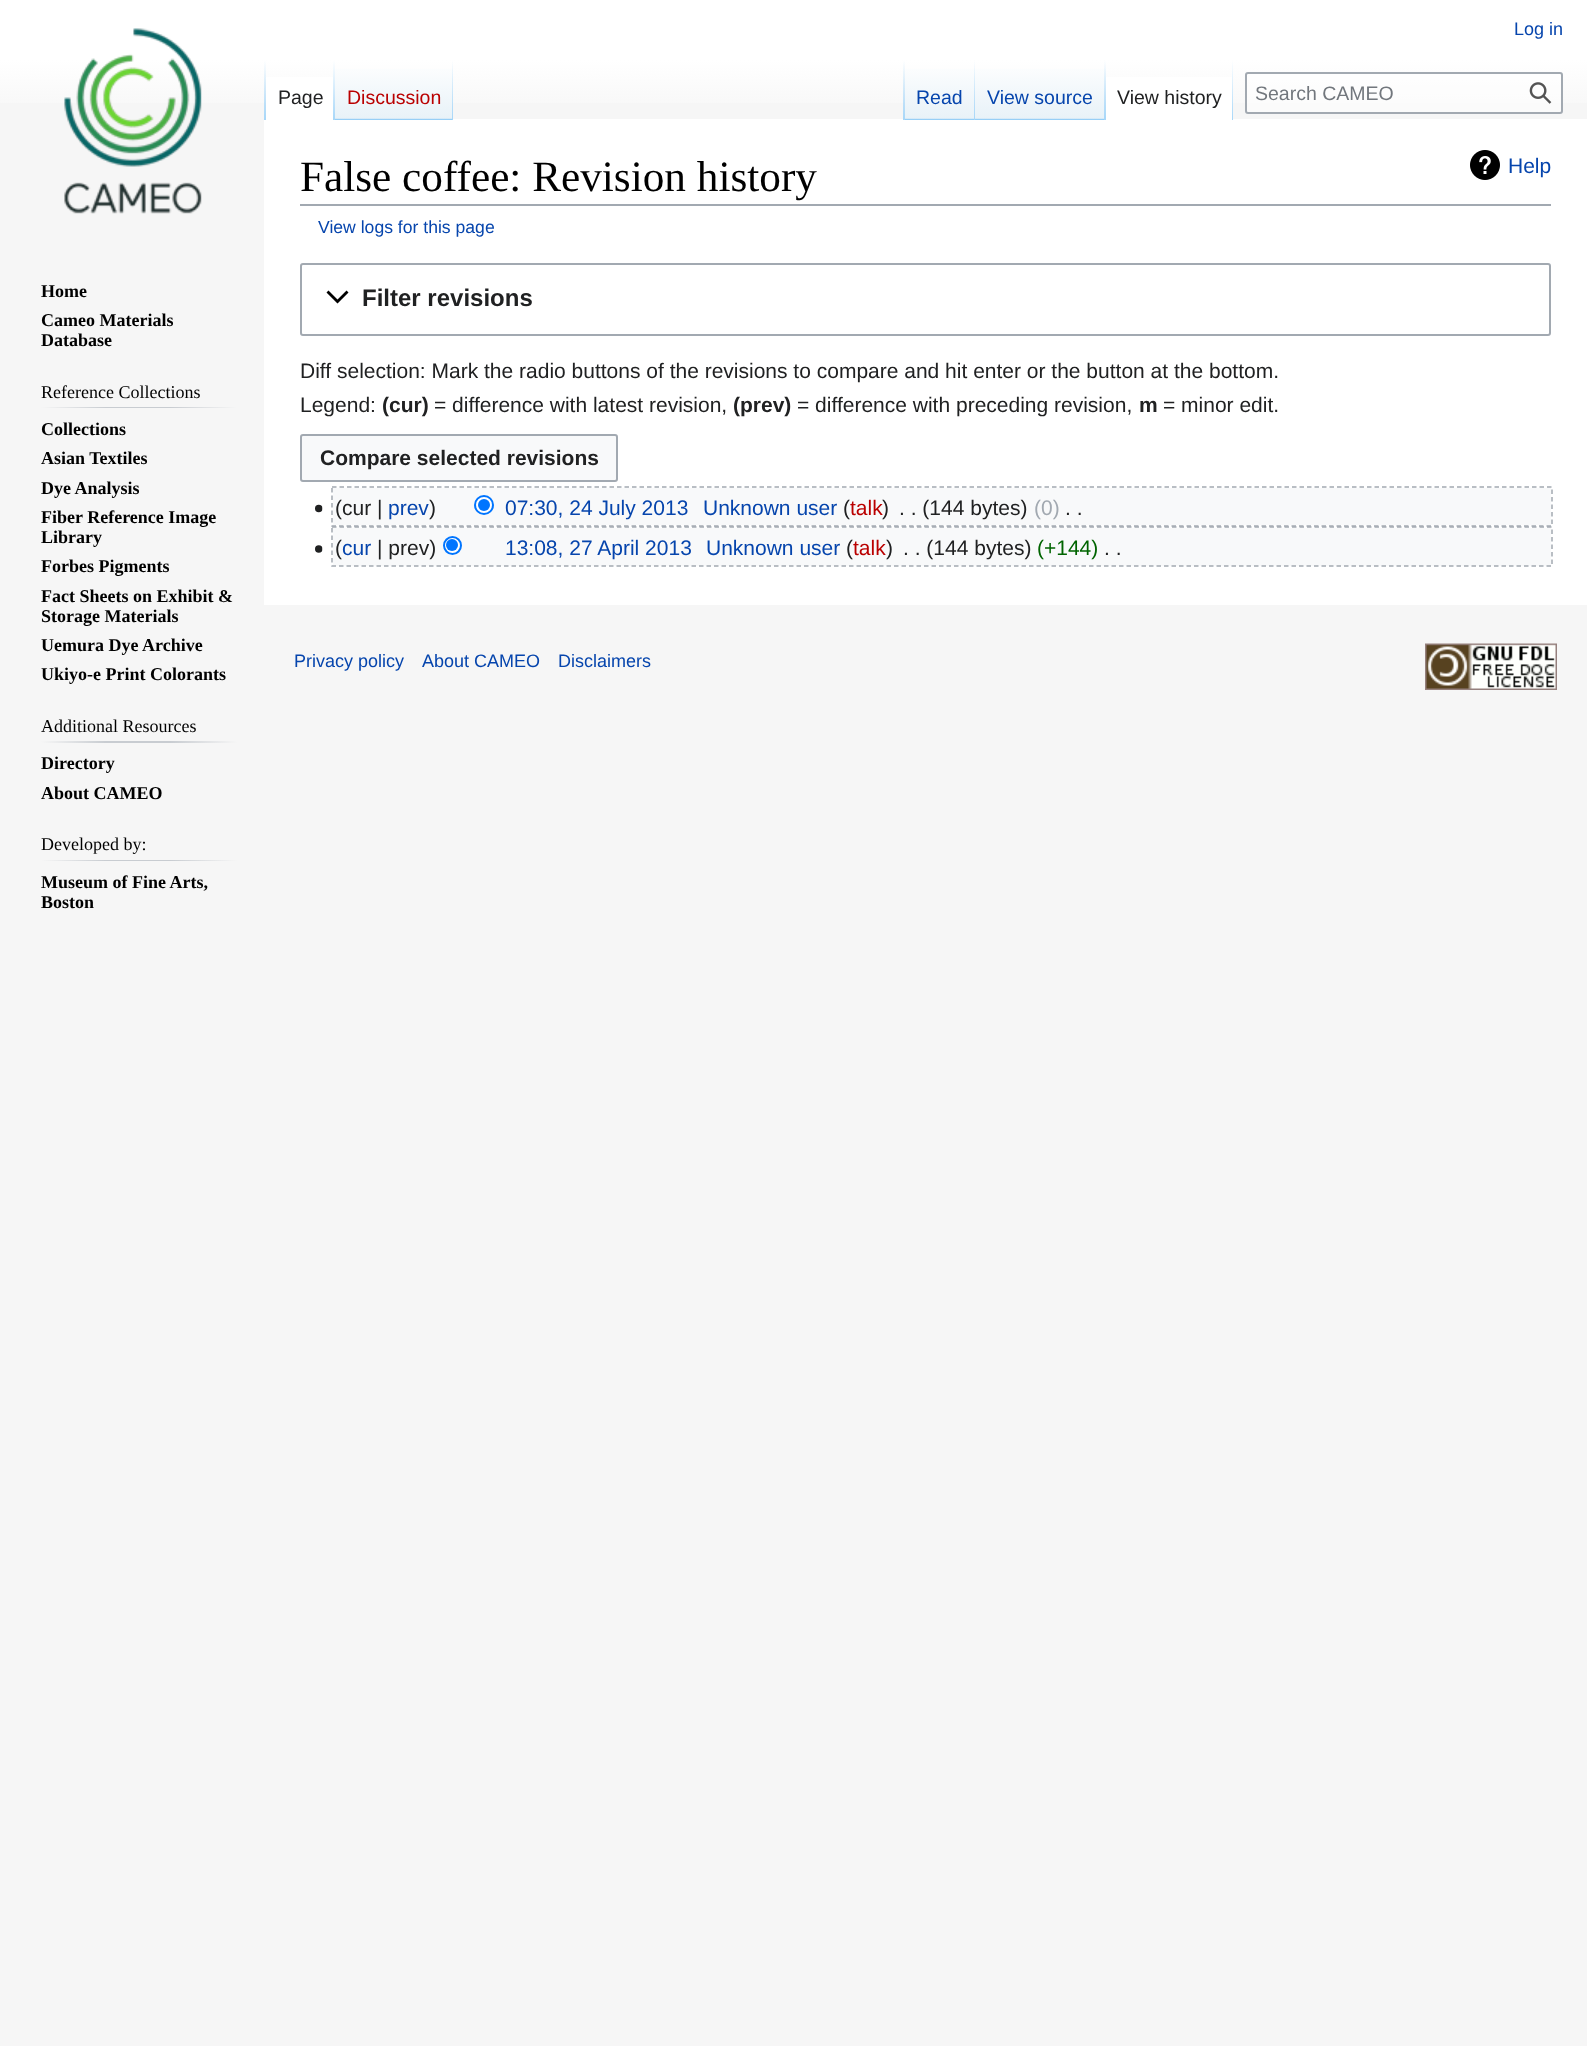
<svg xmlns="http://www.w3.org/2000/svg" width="1587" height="2046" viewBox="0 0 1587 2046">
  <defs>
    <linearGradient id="g1" gradientUnits="userSpaceOnUse" x1="794" y1="0" x2="794" y2="120"><stop offset="0.5" stop-color="rgb(255,255,255)"/><stop offset="1" stop-color="rgb(246,246,246)"/></linearGradient>
    <linearGradient id="g2" gradientUnits="userSpaceOnUse" x1="265" y1="60" x2="265" y2="120"><stop offset="0" stop-color="rgb(167,215,249)" stop-opacity="0"/><stop offset="1" stop-color="rgb(167,215,249)"/></linearGradient>
    <linearGradient id="g3" gradientUnits="userSpaceOnUse" x1="334" y1="60" x2="334" y2="120"><stop offset="0" stop-color="rgb(255,255,255)"/><stop offset="1" stop-color="rgb(167,215,249)"/></linearGradient>
    <linearGradient id="g4" gradientUnits="userSpaceOnUse" x1="394" y1="120" x2="394" y2="60"><stop offset="0" stop-color="rgb(119,193,246)"/><stop offset="0.03" stop-color="rgb(232,242,248)"/><stop offset="1" stop-color="rgb(255,255,255)"/></linearGradient>
    <linearGradient id="g5" gradientUnits="userSpaceOnUse" x1="452" y1="60" x2="452" y2="120"><stop offset="0" stop-color="rgb(167,215,249)" stop-opacity="0"/><stop offset="1" stop-color="rgb(167,215,249)"/></linearGradient>
    <linearGradient id="g6" gradientUnits="userSpaceOnUse" x1="904" y1="60" x2="904" y2="120"><stop offset="0" stop-color="rgb(167,215,249)" stop-opacity="0"/><stop offset="1" stop-color="rgb(167,215,249)"/></linearGradient>
    <linearGradient id="g7" gradientUnits="userSpaceOnUse" x1="940" y1="120" x2="940" y2="60"><stop offset="0" stop-color="rgb(119,193,246)"/><stop offset="0.03" stop-color="rgb(232,242,248)"/><stop offset="1" stop-color="rgb(255,255,255)"/></linearGradient>
    <linearGradient id="g8" gradientUnits="userSpaceOnUse" x1="974" y1="60" x2="974" y2="120"><stop offset="0" stop-color="rgb(167,215,249)" stop-opacity="0"/><stop offset="1" stop-color="rgb(167,215,249)"/></linearGradient>
    <linearGradient id="g9" gradientUnits="userSpaceOnUse" x1="1040" y1="120" x2="1040" y2="60"><stop offset="0" stop-color="rgb(119,193,246)"/><stop offset="0.03" stop-color="rgb(232,242,248)"/><stop offset="1" stop-color="rgb(255,255,255)"/></linearGradient>
    <linearGradient id="g10" gradientUnits="userSpaceOnUse" x1="1105" y1="60" x2="1105" y2="120"><stop offset="0" stop-color="rgb(167,215,249)" stop-opacity="0"/><stop offset="1" stop-color="rgb(167,215,249)"/></linearGradient>
    <linearGradient id="g11" gradientUnits="userSpaceOnUse" x1="1232" y1="60" x2="1232" y2="120"><stop offset="0" stop-color="rgb(255,255,255)"/><stop offset="1" stop-color="rgb(167,215,249)"/></linearGradient>
    <linearGradient id="g12" gradientUnits="userSpaceOnUse" x1="41" y1="407" x2="237" y2="407"><stop offset="0" stop-color="rgb(246,246,246)"/><stop offset="0.33" stop-color="rgb(200,204,209)"/><stop offset="0.66" stop-color="rgb(200,204,209)"/><stop offset="1" stop-color="rgb(246,246,246)"/></linearGradient>
    <linearGradient id="g13" gradientUnits="userSpaceOnUse" x1="41" y1="742" x2="237" y2="742"><stop offset="0" stop-color="rgb(246,246,246)"/><stop offset="0.33" stop-color="rgb(200,204,209)"/><stop offset="0.66" stop-color="rgb(200,204,209)"/><stop offset="1" stop-color="rgb(246,246,246)"/></linearGradient>
    <linearGradient id="g14" gradientUnits="userSpaceOnUse" x1="41" y1="860" x2="237" y2="860"><stop offset="0" stop-color="rgb(246,246,246)"/><stop offset="0.33" stop-color="rgb(200,204,209)"/><stop offset="0.66" stop-color="rgb(200,204,209)"/><stop offset="1" stop-color="rgb(246,246,246)"/></linearGradient>
  </defs>
  <rect width="100%" height="100%" fill="rgb(246,246,246)"/>
  <rect x="0" y="0" width="1587" height="103" fill="url(#g1)"/>
  <text x="1514" y="35" font-family="Liberation Sans" font-size="18" fill="rgb(6,69,173)">Log in</text>
  <rect x="264" y="119" width="1323" height="486" fill="rgb(255,255,255)"/>
  <rect x="264" y="60" width="2" height="60" fill="url(#g2)"/>
  <rect x="266" y="77" width="67" height="42" fill="rgb(255,255,255)"/>
  <rect x="333" y="60" width="2" height="60" fill="url(#g3)"/>
  <text x="278" y="104" font-family="Liberation Sans" font-size="19.5" fill="rgb(32,33,34)">Page</text>
  <rect x="335" y="69" width="118" height="51" fill="url(#g4)"/>
  <rect x="452" y="60" width="1" height="60" fill="url(#g5)"/>
  <text x="347" y="104" font-family="Liberation Sans" font-size="19.5" fill="rgb(186,0,0)">Discussion</text>
  <rect x="903" y="60" width="2" height="60" fill="url(#g6)"/>
  <rect x="905" y="69" width="70" height="51" fill="url(#g7)"/>
  <rect x="974" y="60" width="1" height="60" fill="url(#g8)"/>
  <text x="916" y="104" font-family="Liberation Sans" font-size="19.5" fill="rgb(6,69,173)">Read</text>
  <rect x="975" y="69" width="131" height="51" fill="url(#g9)"/>
  <rect x="1104" y="60" width="2" height="60" fill="url(#g10)"/>
  <text x="987" y="104" font-family="Liberation Sans" font-size="19.5" fill="rgb(6,69,173)">View source</text>
  <rect x="1106" y="77" width="126" height="42" fill="rgb(255,255,255)"/>
  <rect x="1232" y="60" width="1" height="60" fill="url(#g11)"/>
  <text x="1117" y="104" font-family="Liberation Sans" font-size="19.5" fill="rgb(32,33,34)">View history</text>
  <rect x="1246" y="73" width="316" height="40" rx="2" fill="rgba(255,255,255,0.5)" stroke="rgb(162,169,177)" stroke-width="2"/>
  <text x="1255" y="100" font-family="Liberation Sans" font-size="19.5" fill="rgb(114,119,125)">Search CAMEO</text>
  <image x="1529" y="82" width="23" height="22" href="pic1.png"/>
  <image x="64" y="28" width="138" height="186" href="pic2.png"/>
  <g font-family="Liberation Serif" font-size="18" font-weight="bold" fill="rgb(0,0,0)">
    <text>
      <tspan x="41" y="297">Home</tspan>
      <tspan x="41" y="326">Cameo Materials</tspan>
      <tspan x="41" y="346">Database</tspan>
    </text>
  </g>
  <rect x="41" y="407" width="196" height="1" fill="url(#g12)"/>
  <text x="41" y="398" font-family="Liberation Serif" font-size="18" fill="rgb(0,0,0)">Reference Collections</text>
  <g font-family="Liberation Serif" font-size="18" font-weight="bold" fill="rgb(0,0,0)">
    <text>
      <tspan x="41" y="435">Collections</tspan>
      <tspan x="41" y="464">Asian Textiles</tspan>
      <tspan x="41" y="494">Dye Analysis</tspan>
      <tspan x="41" y="523">Fiber Reference Image</tspan>
      <tspan x="41" y="543">Library</tspan>
      <tspan x="41" y="572">Forbes Pigments</tspan>
      <tspan x="41" y="602">Fact Sheets on Exhibit &amp;</tspan>
      <tspan x="41" y="622">Storage Materials</tspan>
      <tspan x="41" y="651">Uemura Dye Archive</tspan>
      <tspan x="41" y="680">Ukiyo-e Print Colorants</tspan>
    </text>
  </g>
  <rect x="41" y="741" width="196" height="2" fill="url(#g13)"/>
  <text x="41" y="732" font-family="Liberation Serif" font-size="18" fill="rgb(0,0,0)">Additional Resources</text>
  <g font-family="Liberation Serif" font-size="18" font-weight="bold" fill="rgb(0,0,0)">
    <text>
      <tspan x="41" y="769">Directory</tspan>
      <tspan x="41" y="799">About CAMEO</tspan>
    </text>
  </g>
  <rect x="41" y="860" width="196" height="1" fill="url(#g14)"/>
  <text x="41" y="850" font-family="Liberation Serif" font-size="18" fill="rgb(0,0,0)">Developed by:</text>
  <g font-family="Liberation Serif" font-size="18" font-weight="bold" fill="rgb(0,0,0)">
    <text>
      <tspan x="41" y="888">Museum of Fine Arts,</tspan>
      <tspan x="41" y="908">Boston</tspan>
    </text>
  </g>
  <rect x="300" y="204" width="1251" height="2" fill="rgb(162,169,177)"/>
  <text x="300" y="191" font-family="Liberation Serif" font-size="43.25" fill="rgb(0,0,0)">False coffee: Revision history</text>
  <image x="1470" y="150" width="30" height="30" href="pic3.png"/>
  <text x="1508" y="173" font-family="Liberation Sans" font-size="21" fill="rgb(6,69,173)">Help</text>
  <text x="318" y="233" font-family="Liberation Sans" font-size="17.6" fill="rgb(6,69,173)">View logs for this page</text>
  <rect x="301" y="264" width="1249" height="71" rx="2" fill="none" stroke="rgb(162,169,177)" stroke-width="2"/>
  <path d="M346.5 290.5L337.5 299.5L328.5 290.5L326.5 292.5L337.5 303.5L348.5 292.5Z" fill="rgb(0,0,0)"/>
  <text x="362" y="306" font-family="Liberation Sans" font-size="24" font-weight="bold" fill="rgb(32,33,34)">Filter revisions</text>
  <g font-family="Liberation Sans" font-size="21" fill="rgb(32,33,34)">
    <text>
      <tspan x="300" y="378">Diff selection: Mark the radio buttons of the revisions to compare and hit enter or the button at the bottom.</tspan>
      <tspan x="300" y="412">Legend:</tspan>
    </text>
  </g>
  <text x="382" y="412" font-family="Liberation Sans" font-size="21" font-weight="bold" fill="rgb(32,33,34)">(cur)</text>
  <text x="434" y="412" font-family="Liberation Sans" font-size="21" fill="rgb(32,33,34)">= difference with latest revision,</text>
  <text x="733" y="412" font-family="Liberation Sans" font-size="21" font-weight="bold" fill="rgb(32,33,34)">(prev)</text>
  <text x="797" y="412" font-family="Liberation Sans" font-size="21" fill="rgb(32,33,34)">= difference with preceding revision,</text>
  <text x="1139" y="412" font-family="Liberation Sans" font-size="21" font-weight="bold" fill="rgb(32,33,34)">m</text>
  <text x="1163" y="412" font-family="Liberation Sans" font-size="21" fill="rgb(32,33,34)">= minor edit.</text>
  <rect x="301" y="435" width="316" height="46" rx="2" fill="rgb(248,249,250)" stroke="rgb(162,169,177)" stroke-width="2"/>
  <text x="320" y="465" font-family="Liberation Sans" font-size="21" font-weight="bold" fill="rgb(32,33,34)">Compare selected revisions</text>
  <rect x="333" y="488" width="1218" height="37" fill="rgb(248,249,250)"/>
  <image x="315" y="504" width="8" height="9" href="pic4.png"/>
  <text x="335" y="515" font-family="Liberation Sans" font-size="21" fill="rgb(32,33,34)">(cur |</text>
  <text x="388" y="515" font-family="Liberation Sans" font-size="21" fill="rgb(6,69,173)">prev</text>
  <text x="429" y="515" font-family="Liberation Sans" font-size="21" fill="rgb(32,33,34)">)</text>
  <circle cx="484" cy="505" r="9" fill="rgb(255,255,255)" stroke="rgb(0,117,255)" stroke-width="2"/>
  <circle cx="484" cy="505" r="6" fill="rgb(0,117,255)"/>
  <g font-family="Liberation Sans" font-size="21" fill="rgb(6,69,173)">
    <text x="505" y="515">07:30, 24 July 2013</text>
    <text x="703" y="515">Unknown user</text>
  </g>
  <text x="843" y="515" font-family="Liberation Sans" font-size="21" fill="rgb(32,33,34)">(</text>
  <text x="850" y="515" font-family="Liberation Sans" font-size="21" fill="rgb(186,0,0)">talk</text>
  <g font-family="Liberation Sans" font-size="21" fill="rgb(32,33,34)">
    <text x="882" y="515">)</text>
    <text x="899" y="515">. . (144 bytes)</text>
    <text x="1065" y="515">. .</text>
  </g>
  <path d="M332 487H1552V526H332Z" fill="none" stroke="rgb(162,169,177)" stroke-width="1.5" stroke-dasharray="4.5 3"/>
  <text x="1034" y="515" font-family="Liberation Sans" font-size="21" fill="rgb(162,169,177)">(0)</text>
  <rect x="333" y="528" width="1218" height="38" fill="rgb(248,249,250)"/>
  <image x="315" y="545" width="8" height="8" href="pic5.png"/>
  <text x="335" y="555" font-family="Liberation Sans" font-size="21" fill="rgb(32,33,34)">(</text>
  <text x="342" y="555" font-family="Liberation Sans" font-size="21" fill="rgb(6,69,173)">cur</text>
  <text x="377" y="555" font-family="Liberation Sans" font-size="21" fill="rgb(32,33,34)">| prev)</text>
  <circle cx="452.5" cy="545.5" r="8.5" fill="rgb(255,255,255)" stroke="rgb(0,117,255)" stroke-width="2"/>
  <circle cx="452" cy="545" r="6" fill="rgb(0,117,255)"/>
  <g font-family="Liberation Sans" font-size="21" fill="rgb(6,69,173)">
    <text x="505" y="555">13:08, 27 April 2013</text>
    <text x="706" y="555">Unknown user</text>
  </g>
  <text x="846" y="555" font-family="Liberation Sans" font-size="21" fill="rgb(32,33,34)">(</text>
  <text x="853" y="555" font-family="Liberation Sans" font-size="21" fill="rgb(186,0,0)">talk</text>
  <g font-family="Liberation Sans" font-size="21" fill="rgb(32,33,34)">
    <text x="886" y="555">)</text>
    <text x="903" y="555">. . (144 bytes)</text>
  </g>
  <text x="1037" y="555" font-family="Liberation Sans" font-size="21" fill="rgb(0,100,0)">(+144)</text>
  <text x="1104" y="555" font-family="Liberation Sans" font-size="21" fill="rgb(32,33,34)">. .</text>
  <path d="M332 527H1552V566H332Z" fill="none" stroke="rgb(162,169,177)" stroke-width="1.5" stroke-dasharray="4.5 3"/>
  <g font-family="Liberation Sans" font-size="18" fill="rgb(6,69,173)">
    <text x="294" y="667">Privacy policy</text>
    <text x="422" y="667">About CAMEO</text>
    <text x="558" y="667">Disclaimers</text>
  </g>
  <image x="1425" y="643" width="132" height="47" href="pic6.png"/>
</svg>
